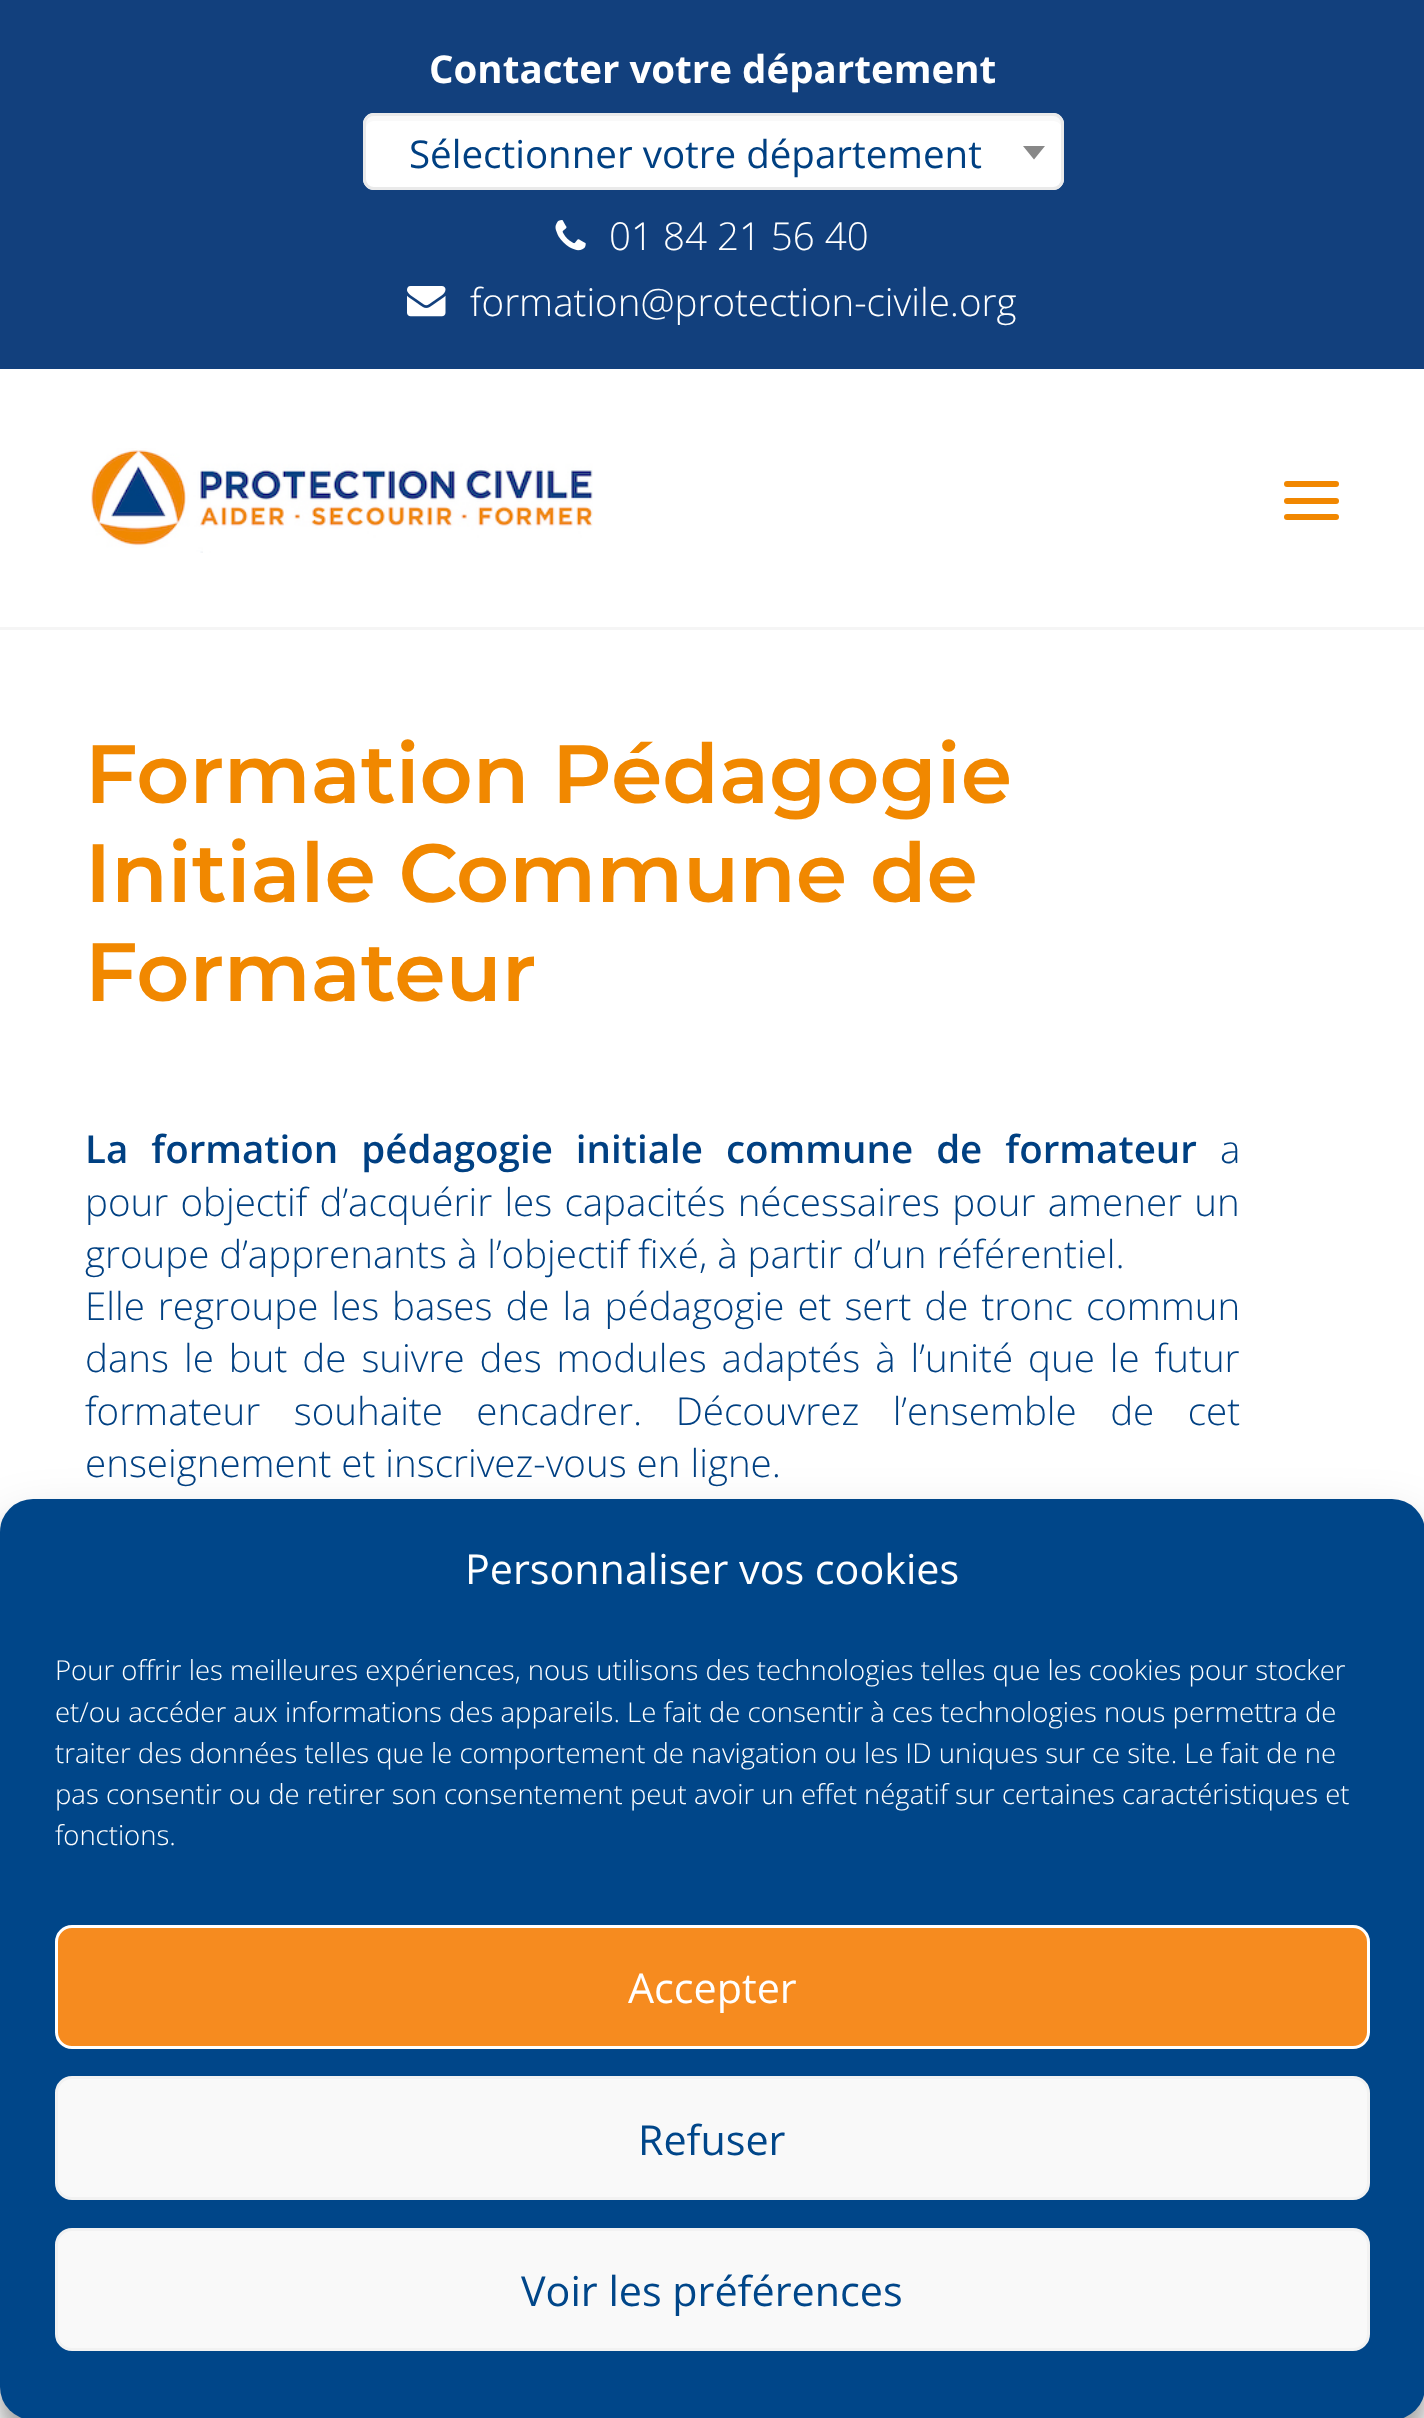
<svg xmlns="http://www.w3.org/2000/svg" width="1424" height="2418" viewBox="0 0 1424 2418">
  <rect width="100%" height="100%" fill="rgb(255,255,255)"/>
  <rect x="0" y="0" width="1424" height="369" fill="rgb(18,64,125)"/>
  <text x="429" y="83" font-family="Open Sans" font-size="38.5" font-weight="bold" fill="rgb(255,255,255)">Contacter votre département</text>
  <rect x="363" y="113" width="701" height="77" rx="11" fill="rgb(255,255,255)"/>
  <path d="M374 121H1053C1058 121 1062 125 1062 129V124C1062 120 1058 116 1054 116H374C370 116 366 120 366 124V129C366 125 369 121 374 121Z" fill="rgb(249,249,249)"/>
  <rect x="364.5" y="114.5" width="698" height="74" rx="9.5" fill="none" stroke="rgb(234,234,234)" stroke-width="3"/>
  <text x="409" y="168" font-family="Open Sans" font-size="38.5" fill="rgb(0,64,130)">Sélectionner votre département</text>
  <path d="M1023 146H1045L1034 159.5Z" fill="rgb(136,136,136)"/>
  <image x="555" y="220" width="31" height="31" href="pic1.png"/>
  <text x="609" y="250" font-family="Open Sans" font-size="38.5" font-weight="300" fill="rgb(255,255,255)">01 84 21 56 40</text>
  <image x="407" y="286" width="39" height="31" href="pic2.png"/>
  <text x="470" y="316" font-family="Open Sans" font-size="38.5" font-weight="300" fill="rgb(255,255,255)">formation@protection-civile.org</text>
  <rect x="0" y="627" width="1424" height="3" fill="rgb(245,245,245)"/>
  <image x="91" y="448" width="502" height="105" href="pic3.png"/>
  <rect x="1284" y="498" width="55" height="6" rx="3" fill="rgb(241,135,0)"/>
  <rect x="1284" y="481" width="55" height="6" rx="3" fill="rgb(241,135,0)"/>
  <rect x="1284" y="514" width="55" height="6" rx="3" fill="rgb(241,135,0)"/>
  <g font-family="Montserrat" font-size="82.5" font-weight="600" fill="rgb(241,136,0)">
    <text>
      <tspan x="85" y="803">Formation Pédagogie</tspan>
      <tspan x="85" y="902">Initiale Commune de</tspan>
      <tspan x="85" y="1001">Formateur</tspan>
    </text>
  </g>
  <text x="85" y="1163" word-spacing="13" font-family="Open Sans" font-size="38.5" font-weight="600" fill="rgb(0,64,130)">La formation pédagogie initiale commune de formateur</text>
  <g font-family="Open Sans" font-size="38.5" font-weight="300" fill="rgb(0,64,130)">
    <text x="1220" y="1163">a</text>
    <text>
      <tspan x="85" y="1216" word-spacing="2.25">pour objectif d’acquérir les capacités nécessaires pour amener un</tspan>
      <tspan x="85" y="1268">groupe d’apprenants à l’objectif fixé, à partir d’un référentiel.</tspan>
      <tspan x="85" y="1320" word-spacing="3">Elle regroupe les bases de la pédagogie et sert de tronc commun</tspan>
      <tspan x="85" y="1372" word-spacing="5">dans le but de suivre des modules adaptés à l’unité que le futur</tspan>
      <tspan x="85" y="1425" word-spacing="23.5">formateur souhaite encadrer. Découvrez l’ensemble de cet</tspan>
      <tspan x="85" y="1477">enseignement et inscrivez-vous en ligne.</tspan>
    </text>
  </g>
  <rect x="0" y="1515" width="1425" height="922" rx="33" fill="rgba(0,0,0,0.23)" filter="blur(8px)"/>
  <rect x="0" y="1526" width="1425" height="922" rx="33" fill="rgba(0,0,0,0.19)" filter="blur(27.5px)"/>
  <rect x="0" y="1499" width="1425" height="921" rx="33" fill="rgb(0,70,137)"/>
  <text x="465" y="1584" font-family="Open Sans" font-size="41.25" fill="rgb(255,255,255)">Personnaliser vos cookies</text>
  <g font-family="Open Sans" font-size="27.5" font-weight="300" fill="rgb(255,255,255)">
    <text>
      <tspan x="55" y="1680">Pour offrir les meilleures expériences, nous utilisons des technologies telles que les cookies pour stocker</tspan>
      <tspan x="55" y="1722">et/ou accéder aux informations des appareils. Le fait de consentir à ces technologies nous permettra de</tspan>
      <tspan x="55" y="1763">traiter des données telles que le comportement de navigation ou les ID uniques sur ce site. Le fait de ne</tspan>
      <tspan x="55" y="1804">pas consentir ou de retirer son consentement peut avoir un effet négatif sur certaines caractéristiques et</tspan>
      <tspan x="55" y="1845">fonctions.</tspan>
    </text>
  </g>
  <rect x="56.5" y="1926.5" width="1312" height="121" rx="15.5" fill="rgb(246,139,31)" stroke="rgb(255,255,255)" stroke-width="3"/>
  <text x="628" y="2003" font-family="Open Sans" font-size="41.25" fill="rgb(255,255,255)">Accepter</text>
  <rect x="56.5" y="2077.5" width="1312" height="121" rx="15.5" fill="rgb(249,249,249)" stroke="rgb(242,242,242)" stroke-width="3"/>
  <text x="638" y="2155" font-family="Open Sans" font-size="41.25" fill="rgb(0,70,137)">Refuser</text>
  <rect x="56.5" y="2229.5" width="1312" height="120" rx="15.5" fill="rgb(249,249,249)" stroke="rgb(242,242,242)" stroke-width="3"/>
  <text x="521" y="2306" font-family="Open Sans" font-size="41.25" fill="rgb(0,70,137)">Voir les préférences</text>
</svg>
